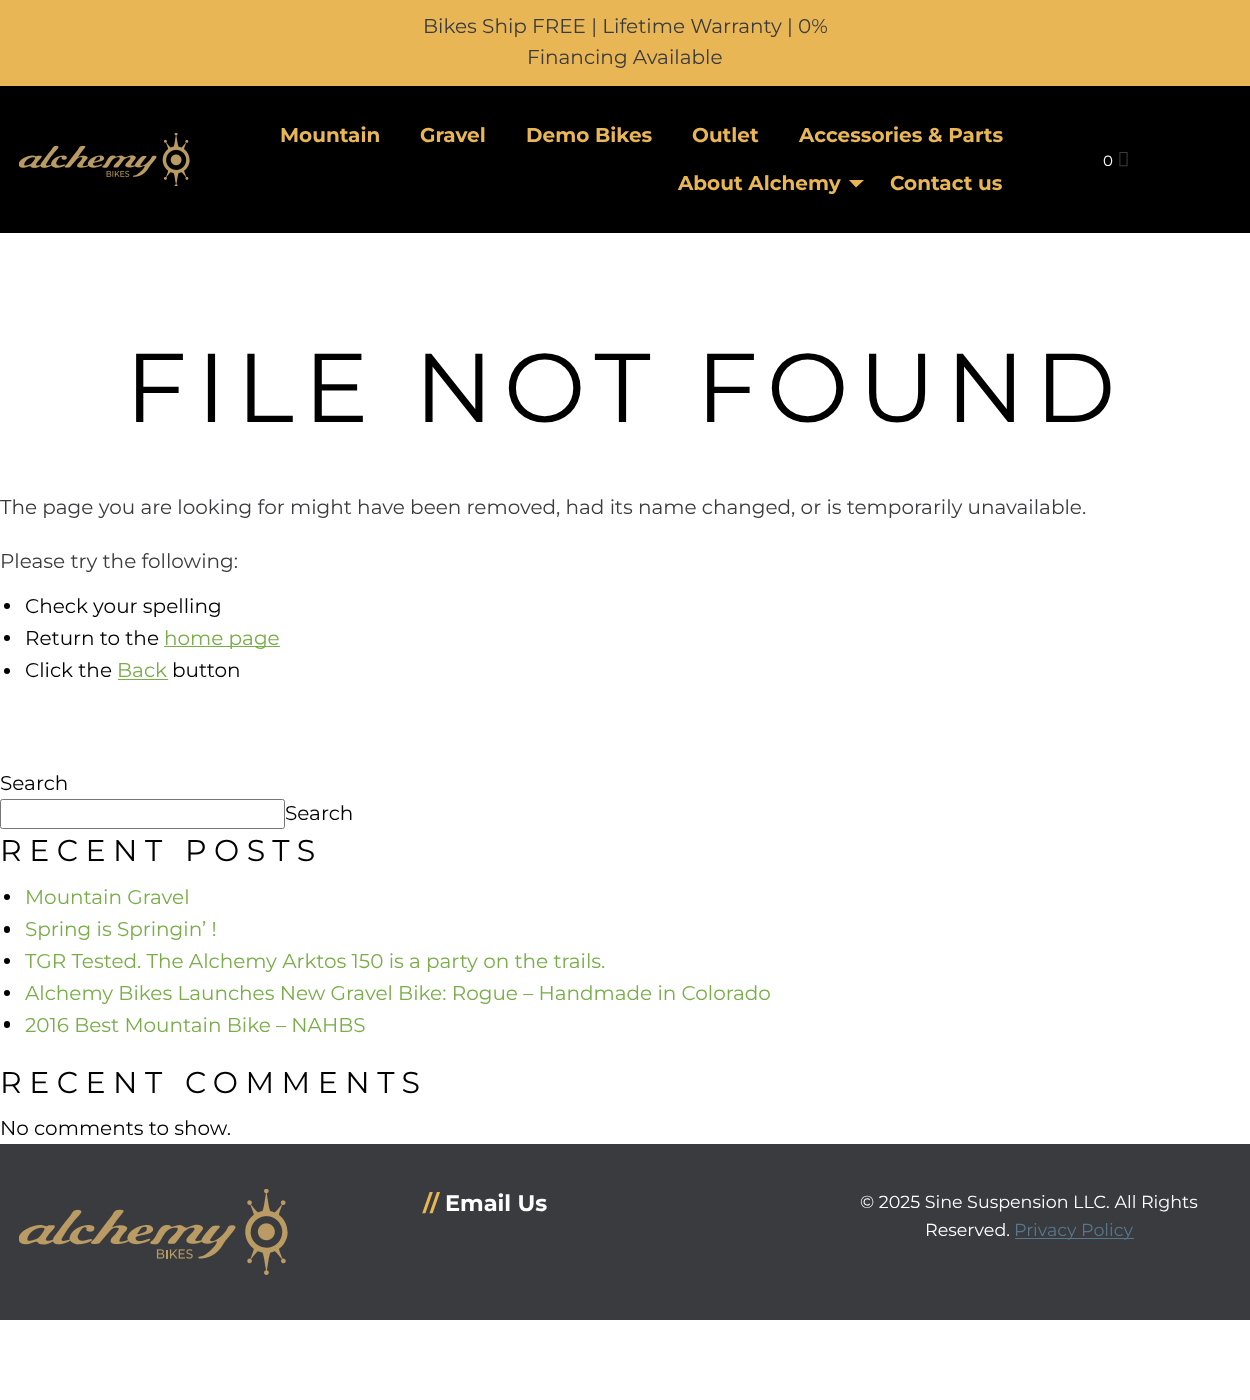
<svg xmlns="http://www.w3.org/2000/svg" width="1250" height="1400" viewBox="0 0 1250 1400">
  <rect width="100%" height="100%" fill="rgb(255,255,255)"/>
  <rect x="0" y="0" width="1250" height="86" fill="rgb(233,182,85)"/>
  <g font-family="Montserrat" font-size="20" fill="rgb(58,59,62)">
    <text x="423" y="33">Bikes Ship FREE | Lifetime Warranty | 0%</text>
    <text x="527" y="64">Financing Available</text>
  </g>
  <rect x="0" y="86" width="1250" height="147" fill="rgb(0,0,0)"/>
  <image x="19" y="133" width="171" height="53" href="pic1.png"/>
  <g font-family="Montserrat" font-size="20" font-weight="bold" fill="rgb(233,182,85)">
    <text x="280" y="142">Mountain</text>
    <text x="420" y="142">Gravel</text>
    <text x="526" y="142">Demo Bikes</text>
    <text x="692" y="142">Outlet</text>
    <text x="799" y="142">Accessories &amp; Parts</text>
    <text x="678" y="190">About Alchemy</text>
  </g>
  <path d="M849 180H864L856 187.5Z" fill="rgb(233,182,85)"/>
  <text x="890" y="190" font-family="Montserrat" font-size="20" font-weight="bold" fill="rgb(233,182,85)">Contact us</text>
  <text x="1103" y="166" font-family="Montserrat" font-size="15" fill="rgb(255,255,255)">0</text>
  <image x="1119" y="152" width="9" height="15" href="pic2.png"/>
  <text x="125" y="422" font-family="Montserrat" font-size="97.5" letter-spacing="10" fill="rgb(0,0,0)">FILE NOT FOUND</text>
  <g font-family="Montserrat" font-size="20" fill="rgb(58,59,62)">
    <text x="0" y="514">The page you are looking for might have been removed, had its name changed, or is temporarily unavailable.</text>
    <text x="0" y="568">Please try the following:</text>
  </g>
  <circle cx="7" cy="606" r="3" fill="rgb(0,0,0)"/>
  <text x="25" y="613" font-family="Montserrat" font-size="20" fill="rgb(0,0,0)">Check your spelling</text>
  <circle cx="7" cy="638" r="3" fill="rgb(0,0,0)"/>
  <text x="25" y="645" font-family="Montserrat" font-size="20" fill="rgb(0,0,0)">Return to the</text>
  <rect x="164" y="646" width="116" height="1" fill="rgb(121,173,71)"/>
  <text x="164" y="645" font-family="Montserrat" font-size="20" fill="rgb(121,173,71)">home page</text>
  <circle cx="7" cy="671" r="3" fill="rgb(0,0,0)"/>
  <text x="25" y="677" font-family="Montserrat" font-size="20" fill="rgb(0,0,0)">Click the</text>
  <text x="117" y="677" font-family="Montserrat" font-size="20" fill="rgb(121,173,71)">Back</text>
  <rect x="118" y="679" width="50" height="1" fill="rgb(121,173,71)"/>
  <g font-family="Montserrat" font-size="20" fill="rgb(0,0,0)">
    <text x="172" y="677">button</text>
    <text x="0" y="790">Search</text>
  </g>
  <rect x="0.5" y="799.5" width="284" height="29" rx="2" fill="none" stroke="rgb(118,118,118)"/>
  <text x="285" y="820" font-family="Montserrat" font-size="20" fill="rgb(0,0,0)">Search</text>
  <text x="0" y="861" font-family="Montserrat" font-size="30" letter-spacing="7.5" fill="rgb(0,0,0)">RECENT POSTS</text>
  <circle cx="7" cy="897" r="3" fill="rgb(0,0,0)"/>
  <text x="25" y="904" font-family="Montserrat" font-size="20" fill="rgb(121,173,71)">Mountain Gravel</text>
  <rect x="4" y="926" width="6" height="7" rx="3" fill="rgb(0,0,0)"/>
  <text x="25" y="936" font-family="Montserrat" font-size="20" fill="rgb(121,173,71)">Spring is Springin’ !</text>
  <circle cx="7" cy="961" r="3" fill="rgb(0,0,0)"/>
  <text x="25" y="968" font-family="Montserrat" font-size="20" fill="rgb(121,173,71)">TGR Tested. The Alchemy Arktos 150 is a party on the trails.</text>
  <circle cx="7" cy="993" r="3" fill="rgb(0,0,0)"/>
  <text x="25" y="1000" font-family="Montserrat" font-size="20" fill="rgb(121,173,71)">Alchemy Bikes Launches New Gravel Bike: Rogue – Handmade in Colorado</text>
  <rect x="4" y="1021" width="6" height="7" rx="3" fill="rgb(0,0,0)"/>
  <text x="25" y="1032" font-family="Montserrat" font-size="20" fill="rgb(121,173,71)">2016 Best Mountain Bike – NAHBS</text>
  <text x="0" y="1093" font-family="Montserrat" font-size="30" letter-spacing="7.5" fill="rgb(0,0,0)">RECENT COMMENTS</text>
  <text x="0" y="1135" font-family="Montserrat" font-size="20" fill="rgb(0,0,0)">No comments to show.</text>
  <rect x="0" y="1144" width="1250" height="176" fill="rgb(58,59,62)"/>
  <image x="19" y="1189" width="269" height="86" href="pic3.png"/>
  <text x="423" y="1211" font-family="Montserrat" font-size="22.5" font-weight="bold" fill="rgb(233,182,85)">//</text>
  <text x="445" y="1211" font-family="Montserrat" font-size="22.5" font-weight="bold" fill="rgb(255,255,255)">Email Us</text>
  <g font-family="Montserrat" font-size="17.5" fill="rgb(255,255,255)">
    <text x="860" y="1208">© 2025 Sine Suspension LLC. All Rights</text>
    <text x="925" y="1236">Reserved.</text>
  </g>
  <rect x="1015" y="1238" width="119" height="1" fill="rgb(86,119,141)"/>
  <text x="1014" y="1236" font-family="Montserrat" font-size="17.5" fill="rgb(86,119,141)">Privacy Policy</text>
</svg>
